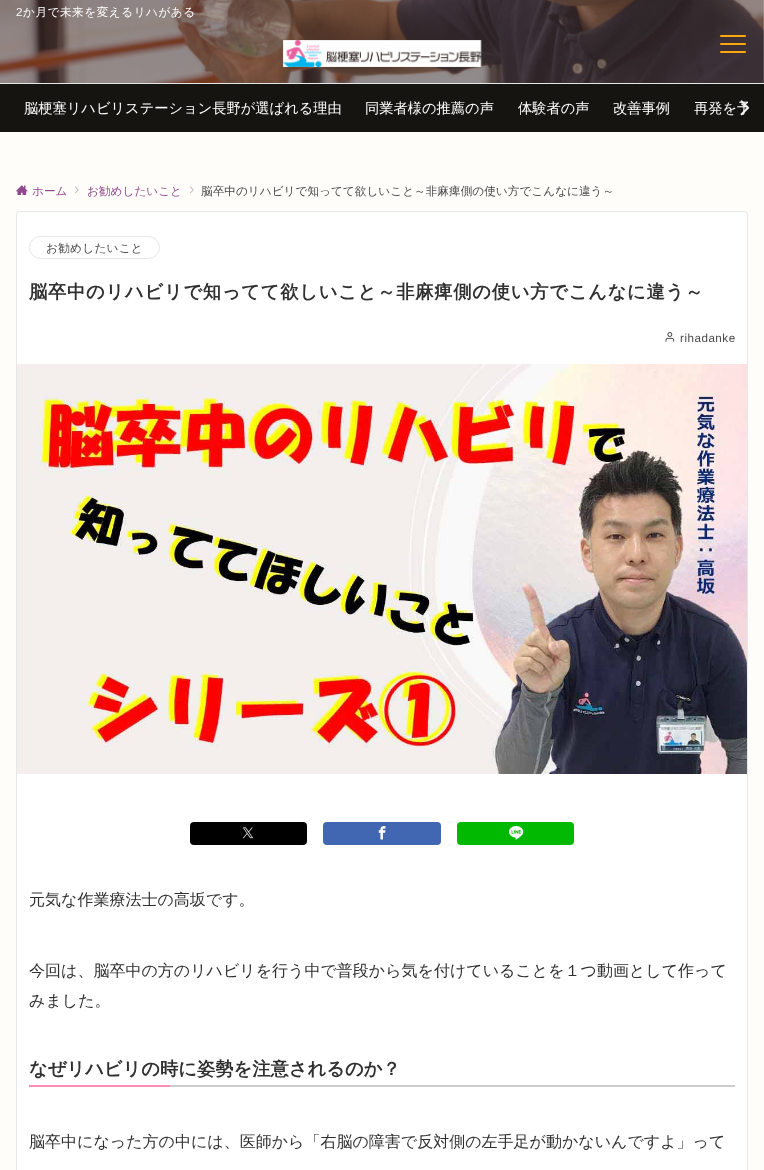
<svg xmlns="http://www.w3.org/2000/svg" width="764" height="1170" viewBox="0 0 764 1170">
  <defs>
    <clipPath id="clip1"><rect x="16" y="84" width="732" height="48"/></clipPath>
  </defs>
  <rect width="100%" height="100%" fill="rgb(255,253,249)"/>
  <image x="0" y="0" width="764" height="83" href="pic1.png"/>
  <text x="16" y="16" font-family="Liberation Sans" font-size="11.65" letter-spacing="0.5" fill="rgb(255,255,255)">2</text>
  <text x="23" y="16" font-family="WenQuanYi Zen Hei" font-size="11.65" font-weight="500" letter-spacing="0.5" fill="rgb(255,255,255)">か月で未来を変えるリハがある</text>
  <rect x="0" y="83" width="764" height="1" fill="rgb(230,230,230)"/>
  <image x="283" y="40" width="199" height="27" href="pic2.png"/>
  <rect x="720" y="35" width="26" height="2" rx="1" fill="rgb(252,166,17)"/>
  <rect x="720" y="43" width="26" height="2" rx="1" fill="rgb(252,166,17)"/>
  <rect x="720" y="51" width="26" height="2" rx="1" fill="rgb(252,166,17)"/>
  <rect x="0" y="84" width="764" height="48" fill="rgb(22,20,16)"/>
  <g font-family="WenQuanYi Zen Hei" font-size="14.25" font-weight="500" fill="rgb(255,255,255)">
    <text x="24" y="113">脳梗塞リハビリステーション長野が選ばれる理由</text>
    <text x="365" y="113">同業者様の推薦の声</text>
    <text x="518" y="113">体験者の声</text>
    <text x="613" y="113">改善事例</text>
  </g>
  <g clip-path="url(#clip1)">
    <text x="694" y="113" font-family="WenQuanYi Zen Hei" font-size="14.25" font-weight="500" fill="rgb(255,255,255)">再発を予</text>
  </g>
  <image x="740" y="100" width="9" height="16" href="pic3.png"/>
  <image x="16" y="185" width="12" height="10" href="pic4.png"/>
  <text x="32" y="195" font-family="WenQuanYi Zen Hei" font-size="11.65" font-weight="500" fill="rgb(145,74,141)">ホーム</text>
  <image x="75" y="186" width="4" height="8" href="pic5.png"/>
  <text x="87" y="195" font-family="WenQuanYi Zen Hei" font-size="11.65" font-weight="500" fill="rgb(145,74,141)">お勧めしたいこと</text>
  <image x="190" y="186" width="4" height="8" href="pic5.png"/>
  <text x="201" y="195" font-family="WenQuanYi Zen Hei" font-size="11.65" font-weight="500" fill="rgb(72,72,72)">脳卒中のリハビリで知ってて欲しいこと～非麻痺側の使い方でこんなに違う～</text>
  <rect x="16.5" y="211.5" width="731" height="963" rx="3.5" fill="rgb(255,255,255)" stroke="rgb(229,231,232)"/>
  <rect x="29.5" y="236.5" width="130" height="22" rx="11" fill="none" stroke="rgb(229,231,232)"/>
  <text x="46" y="252" font-family="WenQuanYi Zen Hei" font-size="11.65" font-weight="500" letter-spacing="0.25" fill="rgb(72,72,72)">お勧めしたいこと</text>
  <text x="29" y="298" font-family="WenQuanYi Zen Hei" font-size="18.3" font-weight="bold" letter-spacing="0.75" fill="rgb(48,48,48)">脳卒中のリハビリで知ってて欲しいこと～非麻痺側の使い方でこんなに違う～</text>
  <image x="665" y="332" width="10" height="10" href="pic6.png"/>
  <text x="680" y="342" font-family="Liberation Sans" font-size="11.65" letter-spacing="0.5" fill="rgb(72,72,72)">rihadanke</text>
  <image x="17" y="364" width="730" height="410" href="pic7.png"/>
  <rect x="190" y="822" width="117" height="23" rx="4" fill="rgb(0,0,0)"/>
  <image x="242" y="827" width="11" height="12" href="pic8.png"/>
  <rect x="323" y="822" width="118" height="23" rx="4" fill="rgb(66,103,178)"/>
  <image x="378" y="826" width="8" height="14" href="pic9.png"/>
  <rect x="457" y="822" width="117" height="23" rx="4" fill="rgb(0,185,0)"/>
  <image x="509" y="826" width="15" height="14" href="pic10.png"/>
  <g font-family="WenQuanYi Zen Hei" font-size="16" font-weight="500" fill="rgb(48,48,48)">
    <text x="29" y="905">元気な作業療法士の高坂です。</text>
    <text>
      <tspan x="29" y="976">今回は、脳卒中の方のリハビリを行う中で普段から気を付けていることを１つ動画として作って</tspan>
      <tspan x="29" y="1006">みました。</tspan>
    </text>
  </g>
  <rect x="170" y="1085" width="565" height="2" fill="rgb(204,204,204)"/>
  <text x="29" y="1075" font-family="WenQuanYi Zen Hei" font-size="18.3" font-weight="bold" fill="rgb(48,48,48)">なぜリハビリの時に姿勢を注意されるのか？</text>
  <rect x="29" y="1085" width="141" height="2" fill="rgb(255,140,178)"/>
  <text x="29" y="1147" font-family="WenQuanYi Zen Hei" font-size="16" font-weight="500" fill="rgb(48,48,48)">脳卒中になった方の中には、医師から「右脳の障害で反対側の左手足が動かないんですよ」って</text>
</svg>
